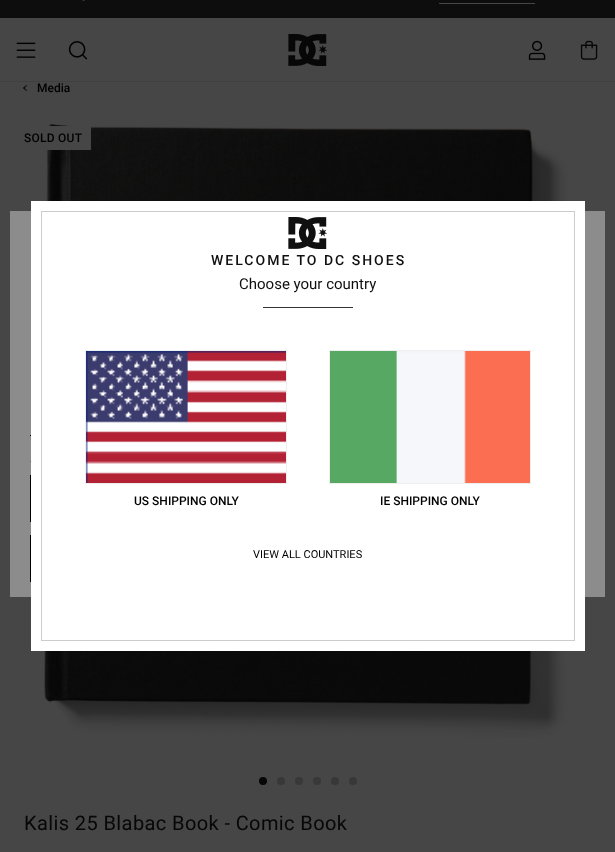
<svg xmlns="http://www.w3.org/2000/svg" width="615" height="852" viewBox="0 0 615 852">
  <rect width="100%" height="100%" fill="rgb(70,70,70)"/>
  <rect x="0" y="0" width="615" height="18" fill="rgb(13,13,13)"/>
  <image x="82" y="0" width="3" height="2" href="pic1.png"/>
  <rect x="439" y="3" width="96" height="1" fill="rgb(70,70,70)"/>
  <rect x="0" y="81" width="615" height="1" fill="rgb(63,63,63)"/>
  <image x="288" y="34" width="39" height="32" href="pic2.png"/>
  <image x="16" y="42" width="20" height="16" href="pic3.png"/>
  <image x="68" y="41" width="20" height="19" href="pic4.png"/>
  <image x="528" y="40" width="18" height="20" href="pic5.png"/>
  <image x="580" y="40" width="18" height="20" href="pic6.png"/>
  <path d="M27 90.5L26.5 91L23 88L24 87.5Z" fill="rgb(0,0,0)"/>
  <path d="M27 85.5L24 88.5L23 88L26.5 85Z" fill="rgb(0,0,0)"/>
  <text x="37" y="92" font-family="Roboto" font-size="12" font-weight="500" fill="rgb(0,0,0)">Media</text>
  <image x="43" y="123" width="525" height="615" href="pic7.png"/>
  <rect x="46" y="126" width="45" height="24" fill="rgb(70,70,70)"/>
  <text x="24" y="142" font-family="Roboto" font-size="12" font-weight="500" letter-spacing="0.25" fill="rgb(0,0,0)">SOLD OUT</text>
  <circle cx="263" cy="781" r="4" fill="rgb(7,7,7)"/>
  <circle cx="281" cy="781" r="4" fill="rgb(56,56,56)"/>
  <circle cx="299" cy="781" r="4" fill="rgb(56,56,56)"/>
  <circle cx="317" cy="781" r="4" fill="rgb(56,56,56)"/>
  <circle cx="335" cy="781" r="4" fill="rgb(56,56,56)"/>
  <circle cx="353" cy="781" r="4" fill="rgb(56,56,56)"/>
  <text x="24" y="830" font-family="Roboto" font-size="20" letter-spacing="0.4" fill="rgb(7,7,7)">Kalis 25 Blabac Book - Comic Book</text>
  <rect x="10" y="211" width="595" height="386" fill="rgb(140,140,140)"/>
  <rect x="30" y="435" width="1" height="1" fill="rgb(0,0,0)"/>
  <rect x="30" y="461" width="1" height="1" fill="rgb(103,103,103)"/>
  <rect x="30" y="475" width="1" height="47" fill="rgb(0,0,0)"/>
  <rect x="30" y="535" width="1" height="47" fill="rgb(0,0,0)"/>
  <rect x="31" y="201" width="554" height="450" fill="rgb(255,255,255)"/>
  <rect x="41.5" y="211.5" width="533" height="429" fill="none" stroke="rgb(204,204,204)"/>
  <image x="288" y="217" width="39" height="32" href="pic8.png"/>
  <text x="211" y="265" font-family="Roboto" font-size="14" font-weight="500" letter-spacing="2" fill="rgb(16,16,16)">WELCOME TO DC SHOES</text>
  <text x="239" y="289" font-family="Roboto" font-size="15" fill="rgb(16,16,16)">Choose your country</text>
  <rect x="263" y="307" width="90" height="1" fill="rgb(51,51,51)"/>
  <rect x="85.5" y="350.5" width="201" height="133" fill="none" stroke="rgb(238,238,238)"/>
  <image x="86" y="351" width="200" height="132" href="pic9.png"/>
  <text x="134" y="505" font-family="Roboto" font-size="12" font-weight="500" fill="rgb(0,0,0)">US SHIPPING ONLY</text>
  <rect x="329.5" y="350.5" width="201" height="133" fill="none" stroke="rgb(238,238,238)"/>
  <image x="330" y="351" width="200" height="132" href="pic10.png"/>
  <text x="380" y="505" font-family="Roboto" font-size="12" font-weight="500" fill="rgb(0,0,0)">IE SHIPPING ONLY</text>
  <text x="253" y="558" font-family="Roboto" font-size="11" fill="rgb(0,0,0)">VIEW ALL COUNTRIES</text>
</svg>
